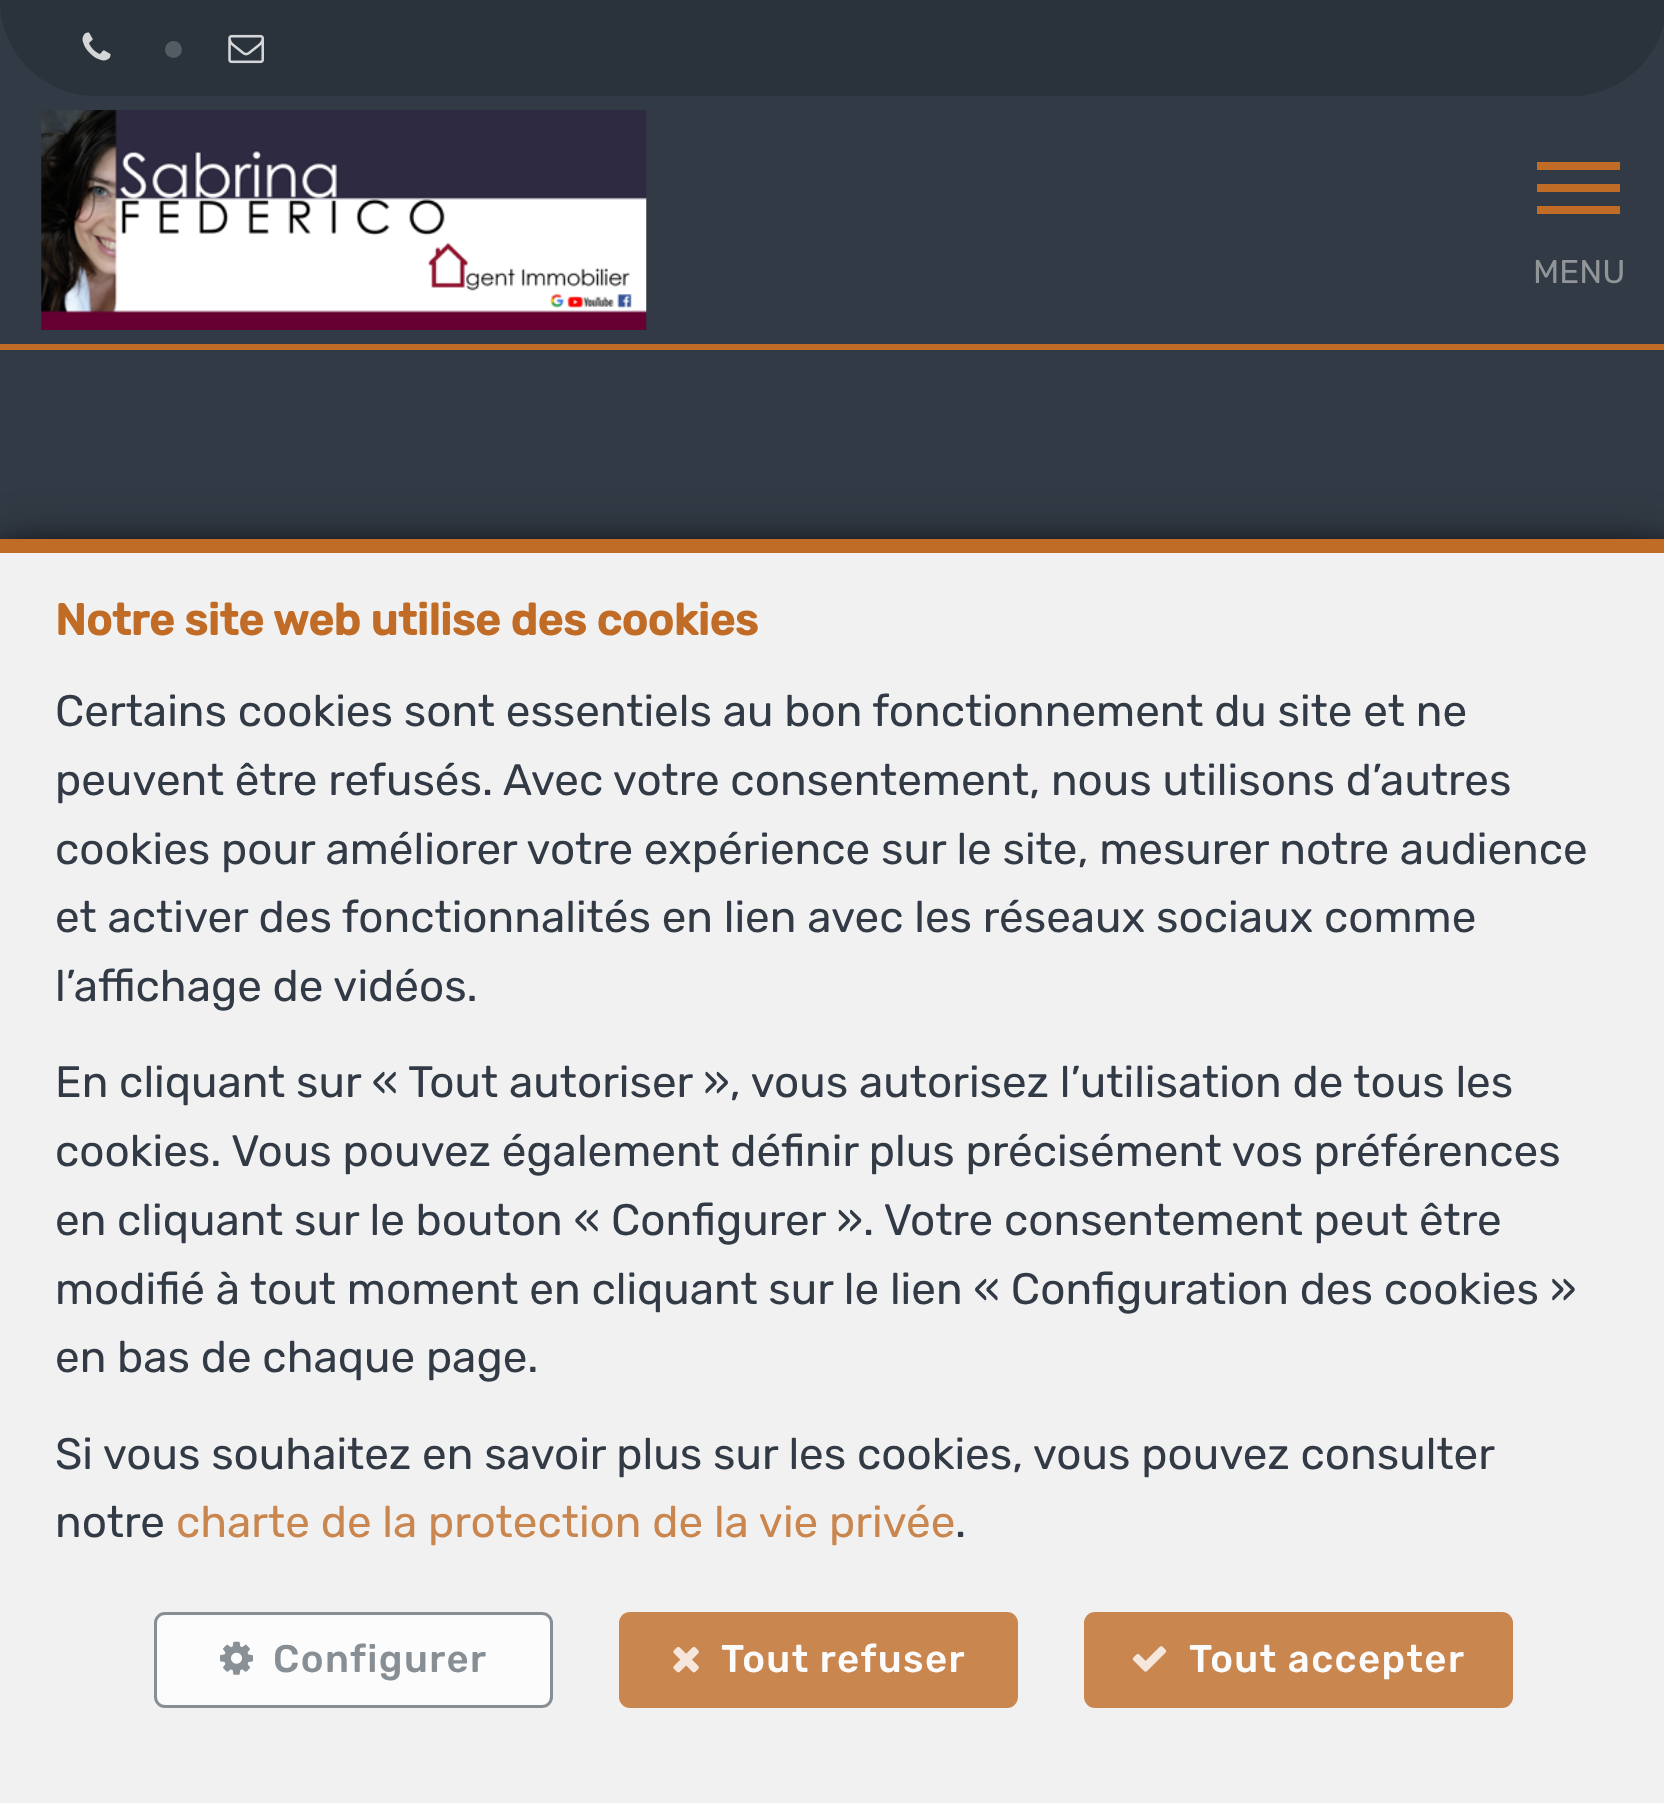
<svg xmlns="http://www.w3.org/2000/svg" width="1664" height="1803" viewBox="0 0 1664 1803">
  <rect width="100%" height="100%" fill="rgb(50,58,69)"/>
  <rect x="0" y="344" width="1664" height="6" fill="rgb(192,107,38)"/>
  <path d="M0 0H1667C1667 53 1624 96 1571 96H96C43 96 0 53 0 0Z" fill="rgb(42,50,60)"/>
  <image x="82" y="32" width="29" height="29" href="pic1.png"/>
  <circle cx="173.5" cy="49.5" r="8.5" fill="rgb(85,91,99)"/>
  <image x="228" y="34" width="36" height="30" href="pic2.png"/>
  <image x="41" y="110" width="606" height="220" href="pic3.png"/>
  <rect x="1537" y="206" width="83" height="8" fill="rgb(192,107,38)"/>
  <rect x="1537" y="162" width="83" height="8" fill="rgb(192,107,38)"/>
  <rect x="1537" y="184" width="83" height="8" fill="rgb(192,107,38)"/>
  <text x="1533" y="283" font-family="Rubik" font-size="33" fill="rgb(146,149,152)">MENU</text>
  <rect x="0" y="556" width="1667" height="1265" fill="rgba(0,0,0,0.9)" filter="blur(27.5px)"/>
  <rect x="0" y="550" width="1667" height="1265" fill="rgba(0,0,0,0.9)" filter="blur(11px)"/>
  <rect x="0" y="553" width="1664" height="1250" fill="rgb(241,241,241)"/>
  <rect x="0" y="539" width="1664" height="14" fill="rgb(192,107,38)"/>
  <text x="55" y="635" font-family="Rubik" font-size="44" font-weight="bold" fill="rgb(192,107,38)">Notre site web utilise des cookies</text>
  <g font-family="Rubik" font-size="44" fill="rgb(50,58,69)">
    <text>
      <tspan x="55" y="726">Certains cookies sont essentiels au bon fonctionnement du site et ne</tspan>
      <tspan x="55" y="795">peuvent être refusés. Avec votre consentement, nous utilisons d’autres</tspan>
      <tspan x="55" y="864">cookies pour améliorer votre expérience sur le site, mesurer notre audience</tspan>
      <tspan x="55" y="932">et activer des fonctionnalités en lien avec les réseaux sociaux comme</tspan>
      <tspan x="55" y="1001">l’affichage de vidéos.</tspan>
    </text>
    <text>
      <tspan x="55" y="1097">En cliquant sur « Tout autoriser », vous autorisez l’utilisation de tous les</tspan>
      <tspan x="55" y="1166">cookies. Vous pouvez également définir plus précisément vos préférences</tspan>
      <tspan x="55" y="1235">en cliquant sur le bouton « Configurer ». Votre consentement peut être</tspan>
      <tspan x="55" y="1304">modifié à tout moment en cliquant sur le lien « Configuration des cookies »</tspan>
      <tspan x="55" y="1372">en bas de chaque page.</tspan>
    </text>
    <text>
      <tspan x="55" y="1469">Si vous souhaitez en savoir plus sur les cookies, vous pouvez consulter</tspan>
      <tspan x="55" y="1537">notre</tspan>
    </text>
  </g>
  <text x="176" y="1537" font-family="Rubik" font-size="44" fill="rgb(202,134,79)">charte de la protection de la vie privée</text>
  <text x="955" y="1537" font-family="Rubik" font-size="44" fill="rgb(50,58,69)">.</text>
  <rect x="155.5" y="1613.5" width="396" height="93" rx="9.5" fill="rgb(252,252,252)" stroke="rgb(135,142,148)" stroke-width="3"/>
  <image x="220" y="1641" width="33" height="34" href="pic4.png"/>
  <text x="273" y="1672" font-family="Rubik" font-size="38.5" font-weight="500" letter-spacing="1.4" fill="rgb(135,142,148)">Configurer</text>
  <rect x="619" y="1612" width="399" height="96" rx="11" fill="rgb(202,134,79)"/>
  <image x="673" y="1646" width="26" height="27" href="pic5.png"/>
  <text x="721" y="1672" font-family="Rubik" font-size="38.5" font-weight="500" letter-spacing="1.4" fill="rgb(252,252,252)">Tout refuser</text>
  <rect x="1084" y="1612" width="429" height="96" rx="11" fill="rgb(202,134,79)"/>
  <image x="1132" y="1646" width="35" height="26" href="pic6.png"/>
  <text x="1189" y="1672" font-family="Rubik" font-size="38.5" font-weight="500" letter-spacing="1.4" fill="rgb(252,252,252)">Tout accepter</text>
</svg>
